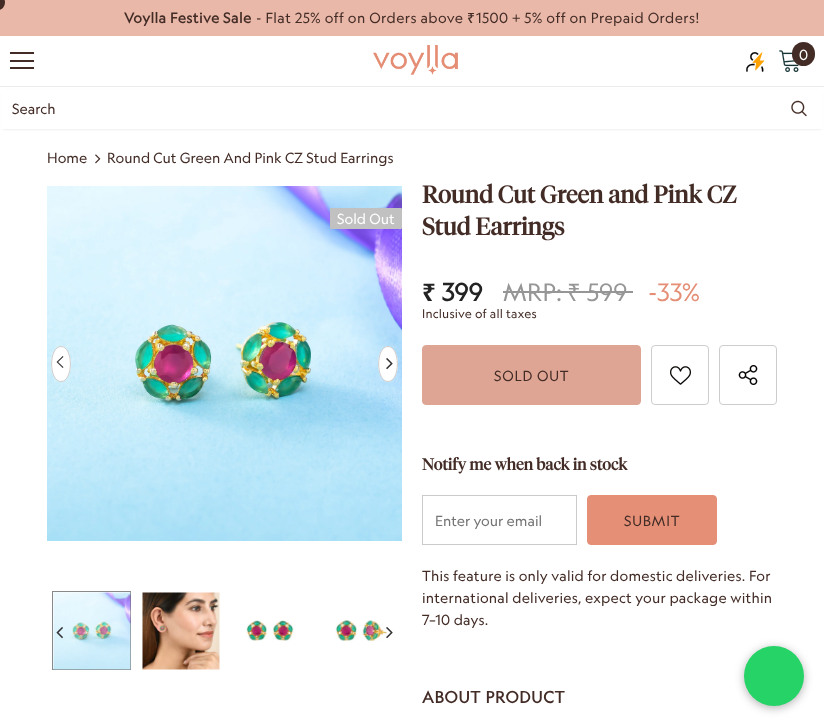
<svg xmlns="http://www.w3.org/2000/svg" width="824" height="726" viewBox="0 0 824 726">
  <rect width="100%" height="100%" fill="rgb(255,255,255)"/>
  <rect x="0" y="0" width="824" height="36" fill="rgb(233,184,169)"/>
  <rect x="-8" y="-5" width="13" height="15" rx="7.5" fill="rgb(67,44,38)"/>
  <text x="124" y="23" font-family="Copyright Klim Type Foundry" font-size="14" font-weight="bold" letter-spacing="0.4" fill="rgb(67,44,38)">Voylla Festive Sale</text>
  <text x="256" y="23" font-family="Copyright Klim Type Foundry" font-size="14" letter-spacing="0.4" fill="rgb(67,44,38)">- Flat 25% off on Orders above</text>
  <text x="467" y="23" font-family="Noto Sans" font-size="14" font-weight="500" letter-spacing="0.4" fill="rgb(67,44,38)">₹</text>
  <text x="476" y="23" font-family="Copyright Klim Type Foundry" font-size="14" letter-spacing="0.4" fill="rgb(67,44,38)">1500 + 5% off on Prepaid Orders!</text>
  <image x="373" y="45" width="85" height="30" href="pic1.png"/>
  <image x="746" y="52" width="19" height="20" href="pic2.png"/>
  <image x="779" y="50" width="20" height="22" href="pic3.png"/>
  <rect x="792" y="42" width="23" height="24" rx="11.5" fill="rgb(67,44,38)"/>
  <text x="799" y="60" font-family="Copyright Klim Type Foundry" font-size="14" fill="rgb(255,255,255)">0</text>
  <rect x="3" y="92" width="818" height="37" fill="rgba(0,0,0,0.12)" filter="blur(1.5px)"/>
  <rect x="1" y="90" width="822" height="39" fill="rgb(255,255,255)"/>
  <rect x="0" y="86" width="824" height="1" fill="rgb(234,234,234)"/>
  <text x="12" y="114" font-family="Copyright Klim Type Foundry" font-size="14" fill="rgb(67,44,38)">Search</text>
  <image x="791" y="100" width="16" height="17" href="pic4.png"/>
  <rect x="10" y="52" width="24" height="2" fill="rgb(67,44,38)"/>
  <rect x="10" y="60" width="24" height="2" fill="rgb(67,44,38)"/>
  <rect x="10" y="67" width="24" height="2" fill="rgb(67,44,38)"/>
  <text x="47" y="163" font-family="Copyright Klim Type Foundry" font-size="14" fill="rgb(67,44,38)">Home</text>
  <image x="95" y="154" width="6" height="10" href="pic5.png"/>
  <text x="107" y="163" font-family="Copyright Klim Type Foundry" font-size="14" fill="rgb(67,44,38)">Round Cut Green And Pink CZ Stud Earrings</text>
  <image x="47" y="186" width="355" height="355" href="pic6.png"/>
  <ellipse cx="61" cy="364" rx="10" ry="18" fill="rgb(255,255,255)"/>
  <path d="M61 346.5C73.5 346.5 73.5 381.5 61 381.5C48.5 381.5 48.5 346.5 61 346.5Z" fill="none" stroke="rgb(204,204,204)"/>
  <image x="56" y="356" width="8" height="12" href="pic7.png"/>
  <ellipse cx="388" cy="364" rx="10" ry="18" fill="rgb(255,255,255)"/>
  <path d="M388 346.5C400.5 346.5 400.5 381.5 388 381.5C375.5 381.5 375.5 346.5 388 346.5Z" fill="none" stroke="rgb(204,204,204)"/>
  <image x="386" y="358" width="7" height="12" href="pic8.png"/>
  <rect x="330" y="208" width="72" height="21" rx="1" fill="rgb(193,193,193)"/>
  <text x="337" y="224" font-family="Copyright Klim Type Foundry" font-size="14" fill="rgb(255,255,255)">Sold Out</text>
  <rect x="52.5" y="591.5" width="78" height="78" fill="none" stroke="rgb(137,137,137)"/>
  <image x="53" y="592" width="78" height="78" href="pic9.png"/>
  <image x="142" y="592" width="78" height="78" href="pic10.png"/>
  <image x="246" y="620" width="48" height="21" href="pic11.png"/>
  <image x="335" y="620" width="53" height="21" href="pic12.png"/>
  <image x="56" y="627" width="7" height="12" href="pic13.png"/>
  <image x="386" y="627" width="7" height="12" href="pic14.png"/>
  <g font-family="'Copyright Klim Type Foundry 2'" font-size="24" font-weight="bold" fill="rgb(67,44,38)">
    <text>
      <tspan x="422" y="203">Round Cut Green and Pink CZ</tspan>
      <tspan x="422" y="235">Stud Earrings</tspan>
    </text>
  </g>
  <text x="422" y="301" font-family="Noto Sans" font-size="24" font-weight="bold" letter-spacing="0.2" fill="rgb(35,35,35)">₹</text>
  <text x="442" y="301" font-family="Copyright Klim Type Foundry" font-size="24" font-weight="bold" letter-spacing="0.2" fill="rgb(35,35,35)">399</text>
  <text x="503" y="301" font-family="Copyright Klim Type Foundry" font-size="24" letter-spacing="0.2" fill="rgb(150,150,150)">MRP:</text>
  <rect x="503" y="291" width="130" height="2" fill="rgb(150,150,150)"/>
  <text x="567" y="301" font-family="Noto Sans" font-size="24" letter-spacing="0.2" fill="rgb(150,150,150)">₹</text>
  <text x="587" y="301" font-family="Copyright Klim Type Foundry" font-size="24" letter-spacing="0.2" fill="rgb(150,150,150)">599</text>
  <text x="648" y="301" font-family="Copyright Klim Type Foundry" font-size="24" letter-spacing="0.2" fill="rgb(228,143,118)">-33%</text>
  <text x="422" y="318" font-family="Copyright Klim Type Foundry" font-size="12" letter-spacing="0.2" fill="rgb(67,44,38)">Inclusive of all taxes</text>
  <rect x="422.5" y="345.5" width="218" height="59" rx="3.5" fill="rgb(223,165,148)" stroke="rgb(223,165,148)"/>
  <text x="494" y="381" font-family="Copyright Klim Type Foundry" font-size="14" letter-spacing="0.75" fill="rgb(67,44,38)">SOLD OUT</text>
  <rect x="651.5" y="345.5" width="57" height="59" rx="3.5" fill="none" stroke="rgb(205,205,205)"/>
  <image x="670" y="366" width="21" height="19" href="pic15.png"/>
  <rect x="719.5" y="345.5" width="57" height="59" rx="3.5" fill="none" stroke="rgb(205,205,205)"/>
  <image x="738" y="365" width="20" height="20" href="pic16.png"/>
  <text x="422" y="470" font-family="'Copyright Klim Type Foundry 2'" font-size="16" font-weight="bold" fill="rgb(67,44,38)">Notify me when back in stock</text>
  <rect x="422.5" y="495.5" width="154" height="49" fill="none" stroke="rgb(203,203,203)"/>
  <text x="435" y="526" font-family="Copyright Klim Type Foundry" font-size="14" fill="rgb(117,117,117)">Enter your email</text>
  <rect x="587.5" y="495.5" width="129" height="49" rx="3.5" fill="rgb(228,143,118)" stroke="rgb(228,143,118)"/>
  <text x="624" y="526" font-family="Copyright Klim Type Foundry" font-size="14" letter-spacing="0.75" fill="rgb(67,44,38)">SUBMIT</text>
  <g font-family="Copyright Klim Type Foundry" font-size="14" letter-spacing="0.2" fill="rgb(67,44,38)">
    <text>
      <tspan x="422" y="581">This feature is only valid for domestic deliveries. For</tspan>
      <tspan x="422" y="603">international deliveries, expect your package within</tspan>
      <tspan x="422" y="625">7–10 days.</tspan>
    </text>
  </g>
  <text x="422" y="703" font-family="Copyright Klim Type Foundry" font-size="16" font-weight="bold" letter-spacing="0.75" fill="rgb(67,44,38)">ABOUT PRODUCT</text>
  <rect x="744" y="648" width="60" height="60" rx="30" fill="rgba(0,0,0,0.3)" filter="blur(5px)"/>
  <circle cx="774" cy="676" r="30" fill="rgb(37,211,102)"/>
</svg>
